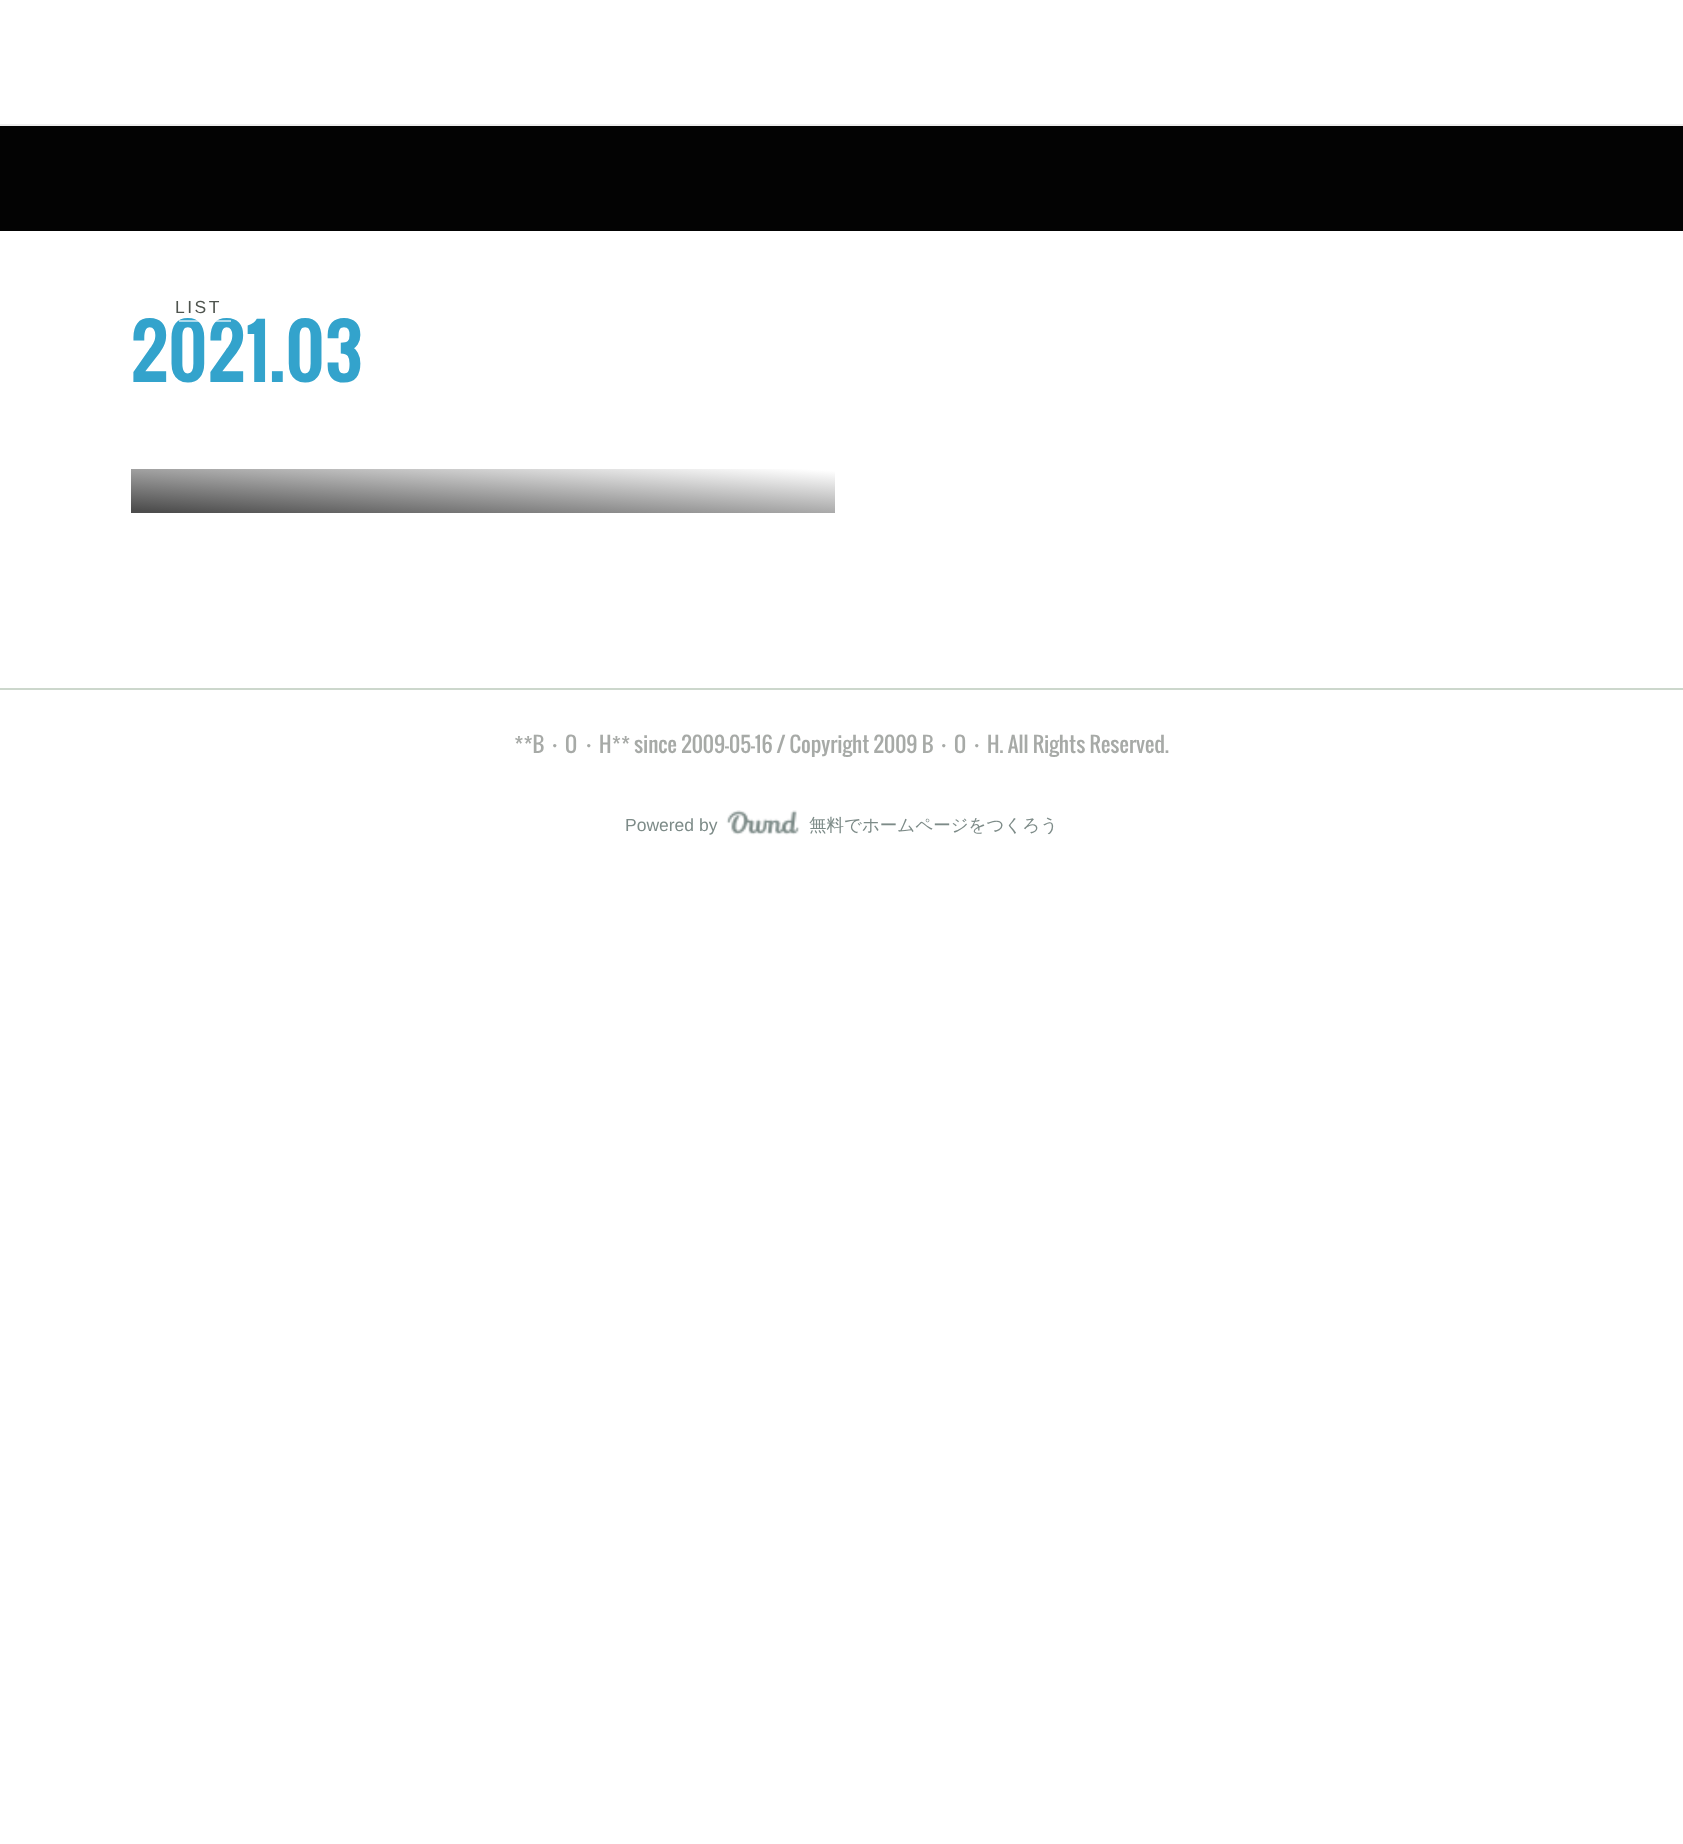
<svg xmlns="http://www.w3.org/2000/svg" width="1683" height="1844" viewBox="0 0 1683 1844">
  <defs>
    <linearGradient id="g1" gradientUnits="userSpaceOnUse" x1="486" y1="447" x2="480" y2="534"><stop offset="0" stop-color="rgb(255,255,255)"/><stop offset="1" stop-color="rgb(77,77,77)"/></linearGradient>
  </defs>
  <rect width="100%" height="100%" fill="rgb(255,255,255)"/>
  <rect x="0" y="124" width="1683" height="2" fill="rgb(238,238,238)"/>
  <rect x="0" y="126" width="1683" height="105" fill="rgb(3,3,3)"/>
  <text x="131" y="382" font-family="Oswald" font-size="70" font-weight="bold" letter-spacing="2.5" fill="rgb(51,163,204)">2021.03</text>
  <rect x="179" y="320" width="52" height="2" fill="rgba(255,255,255,0.6)"/>
  <text x="175" y="313" font-family="Liberation Sans" font-size="17.5" letter-spacing="2.5" fill="rgb(78,84,78)">LIST</text>
  <rect x="131" y="469" width="704" height="44" fill="url(#g1)"/>
  <rect x="0" y="688" width="1683" height="2" fill="rgb(204,215,204)"/>
  <text x="514" y="753" font-family="Oswald" font-size="21" fill="rgb(167,170,167)">**B</text>
  <text x="544" y="753" font-family="WenQuanYi Zen Hei" font-size="21" font-weight="500" fill="rgb(167,170,167)">・</text>
  <text x="565" y="753" font-family="Oswald" font-size="21" fill="rgb(167,170,167)">O</text>
  <text x="578" y="753" font-family="WenQuanYi Zen Hei" font-size="21" font-weight="500" fill="rgb(167,170,167)">・</text>
  <text x="599" y="753" font-family="Oswald" font-size="21" fill="rgb(167,170,167)">H** since 2009-05-16 / Copyright 2009 B</text>
  <text x="933" y="753" font-family="WenQuanYi Zen Hei" font-size="21" font-weight="500" fill="rgb(167,170,167)">・</text>
  <text x="954" y="753" font-family="Oswald" font-size="21" fill="rgb(167,170,167)">O</text>
  <text x="966" y="753" font-family="WenQuanYi Zen Hei" font-size="21" font-weight="500" fill="rgb(167,170,167)">・</text>
  <text x="987" y="753" font-family="Oswald" font-size="21" fill="rgb(167,170,167)">H. All Rights Reserved.</text>
  <text x="625" y="831" font-family="Liberation Sans" font-size="17.5" fill="rgb(125,139,136)">Powered by</text>
  <image x="726" y="810" width="74" height="25" href="pic1.png"/>
  <text x="809" y="831" font-family="WenQuanYi Zen Hei" font-size="17.5" font-weight="500" fill="rgb(125,139,136)">無料でホームページをつくろう</text>
</svg>
